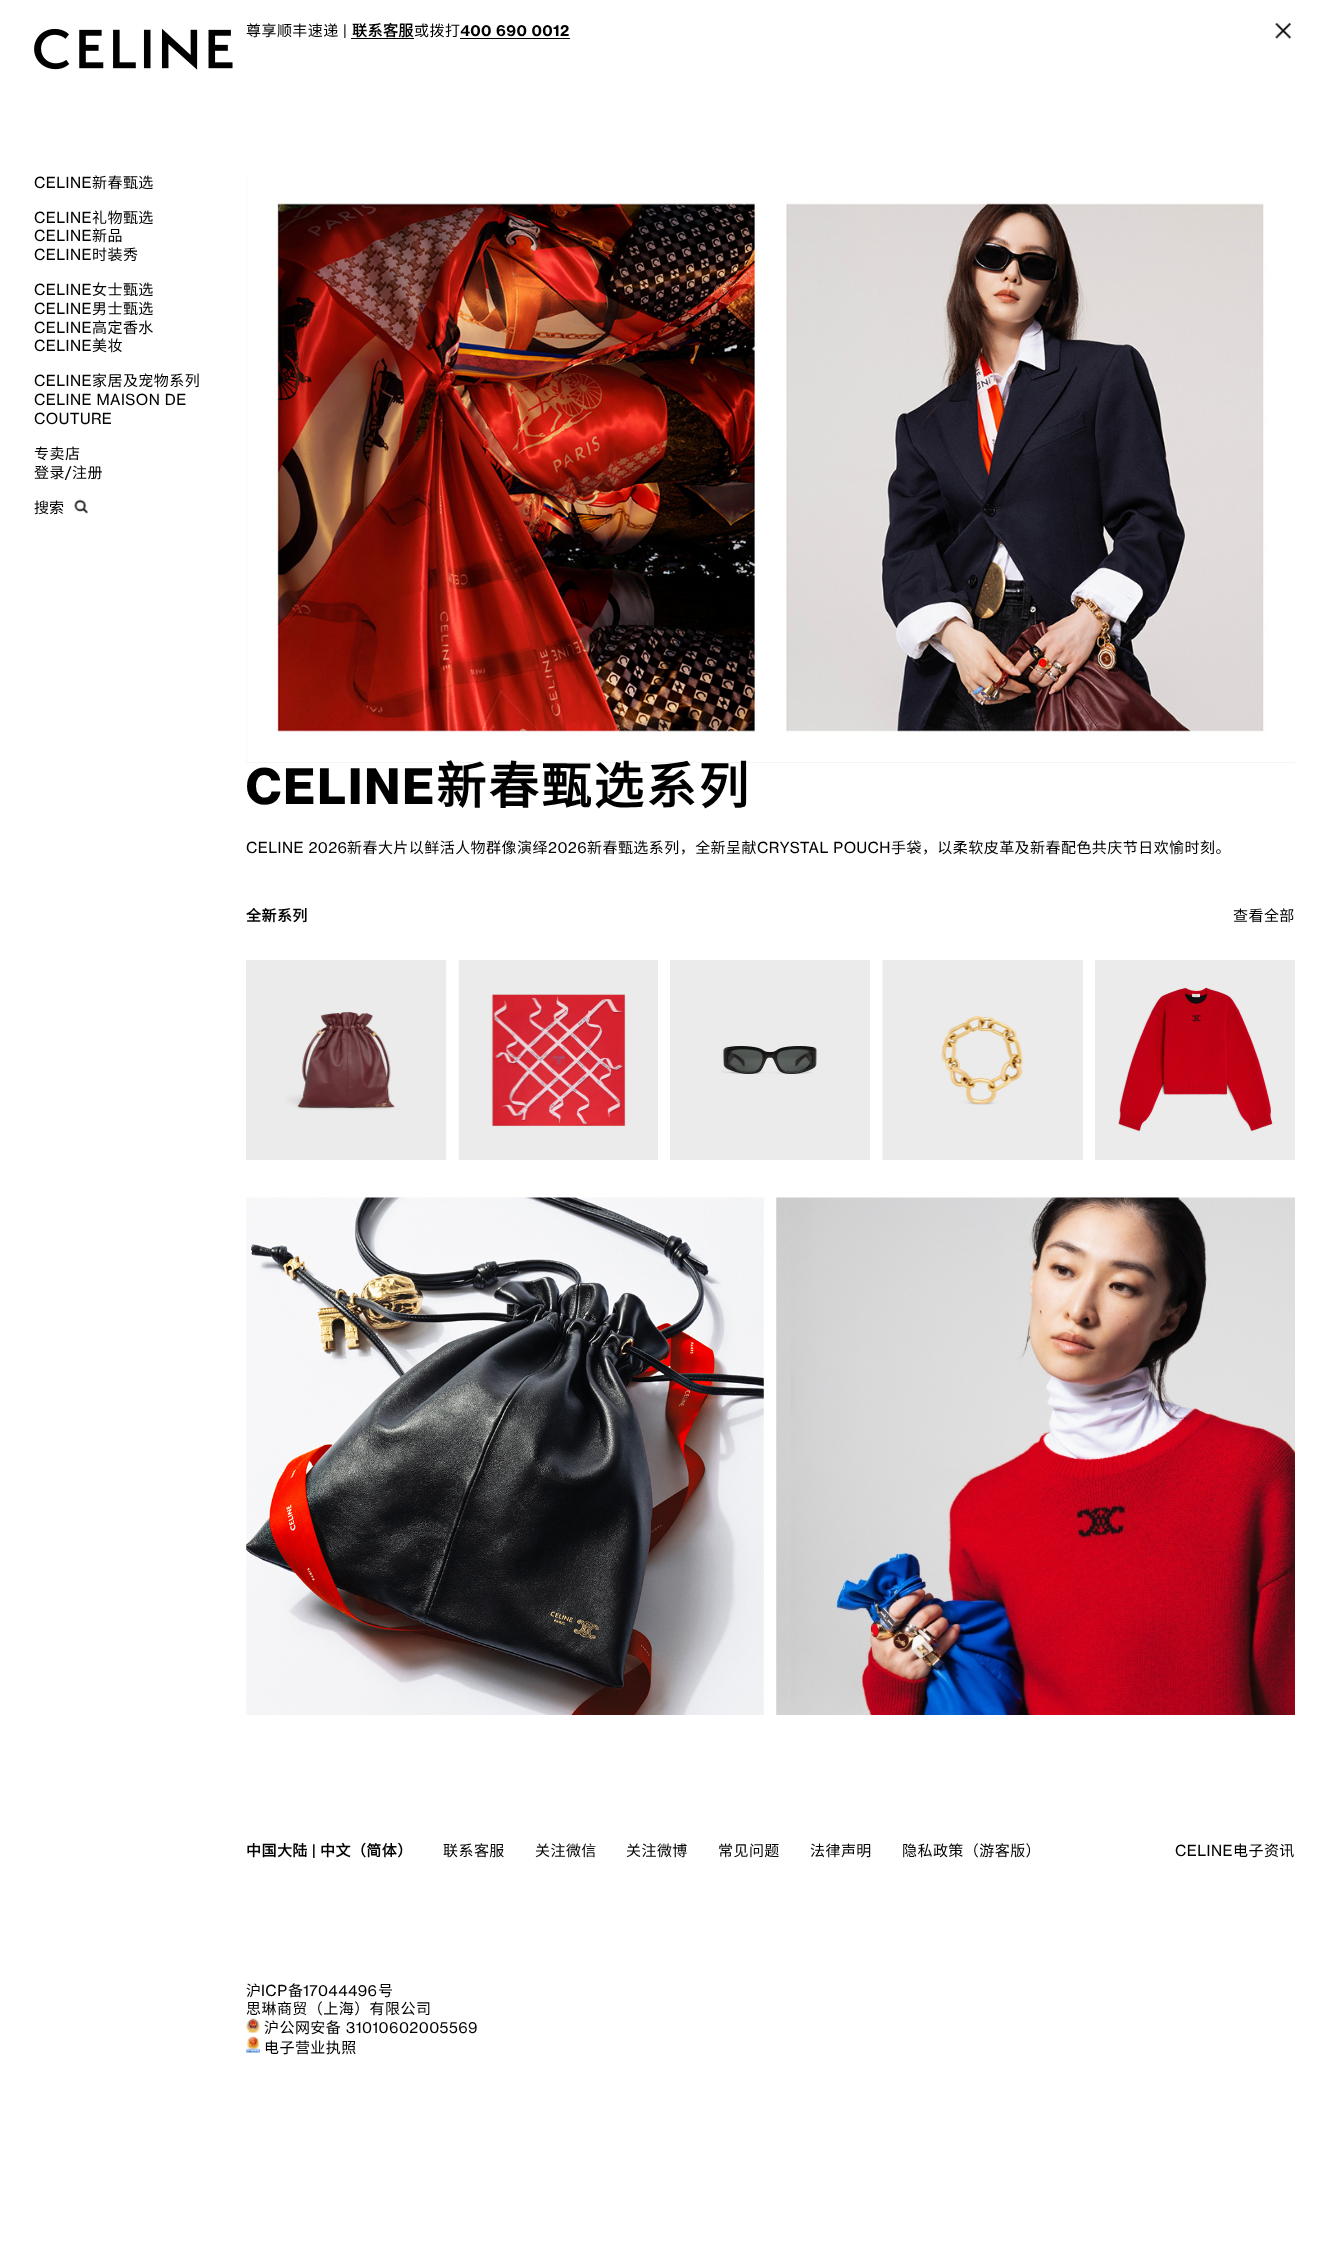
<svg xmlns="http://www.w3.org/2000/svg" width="1328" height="2252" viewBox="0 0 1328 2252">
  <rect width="100%" height="100%" fill="rgb(255,255,255)"/>
  <text x="246" y="36" font-family="Noto Sans CJK SC" font-size="15" letter-spacing="0.45" fill="rgb(0,0,0)">尊享顺丰速递</text>
  <text x="343" y="36" font-family="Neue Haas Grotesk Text" font-size="15" letter-spacing="0.45" fill="rgb(0,0,0)">|</text>
  <text x="352" y="36" font-family="Noto Sans CJK SC" font-size="15" font-weight="bold" letter-spacing="0.45" fill="rgb(0,0,0)">联系客服</text>
  <rect x="351" y="38" width="63" height="1" fill="rgb(0,0,0)"/>
  <text x="414" y="36" font-family="Noto Sans CJK SC" font-size="15" letter-spacing="0.45" fill="rgb(0,0,0)">或拨打</text>
  <text x="460" y="36" font-family="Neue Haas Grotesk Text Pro" font-size="15" font-weight="bold" letter-spacing="0.45" fill="rgb(0,0,0)">400 690 0012</text>
  <rect x="460" y="38" width="110" height="1" fill="rgb(0,0,0)"/>
  <image x="1275" y="22" width="17" height="17" href="pic1.png"/>
  <image x="34" y="28" width="199" height="42" href="pic2.png"/>
  <text x="34" y="188" font-family="Neue Haas Grotesk Text" font-size="15" letter-spacing="0.45" fill="rgb(0,0,0)">CELINE</text>
  <text x="92" y="188" font-family="Noto Sans CJK SC" font-size="15" letter-spacing="0.45" fill="rgb(0,0,0)">新春甄选</text>
  <text x="34" y="223" font-family="Neue Haas Grotesk Text" font-size="15" letter-spacing="0.45" fill="rgb(0,0,0)">CELINE</text>
  <text x="92" y="223" font-family="Noto Sans CJK SC" font-size="15" letter-spacing="0.45" fill="rgb(0,0,0)">礼物甄选</text>
  <text x="34" y="241" font-family="Neue Haas Grotesk Text" font-size="15" letter-spacing="0.45" fill="rgb(0,0,0)">CELINE</text>
  <text x="92" y="241" font-family="Noto Sans CJK SC" font-size="15" letter-spacing="0.45" fill="rgb(0,0,0)">新品</text>
  <text x="34" y="260" font-family="Neue Haas Grotesk Text" font-size="15" letter-spacing="0.45" fill="rgb(0,0,0)">CELINE</text>
  <text x="92" y="260" font-family="Noto Sans CJK SC" font-size="15" letter-spacing="0.45" fill="rgb(0,0,0)">时装秀</text>
  <text x="34" y="295" font-family="Neue Haas Grotesk Text" font-size="15" letter-spacing="0.45" fill="rgb(0,0,0)">CELINE</text>
  <text x="92" y="295" font-family="Noto Sans CJK SC" font-size="15" letter-spacing="0.45" fill="rgb(0,0,0)">女士甄选</text>
  <text x="34" y="314" font-family="Neue Haas Grotesk Text" font-size="15" letter-spacing="0.45" fill="rgb(0,0,0)">CELINE</text>
  <text x="92" y="314" font-family="Noto Sans CJK SC" font-size="15" letter-spacing="0.45" fill="rgb(0,0,0)">男士甄选</text>
  <text x="34" y="333" font-family="Neue Haas Grotesk Text" font-size="15" letter-spacing="0.45" fill="rgb(0,0,0)">CELINE</text>
  <text x="92" y="333" font-family="Noto Sans CJK SC" font-size="15" letter-spacing="0.45" fill="rgb(0,0,0)">高定香水</text>
  <text x="34" y="351" font-family="Neue Haas Grotesk Text" font-size="15" letter-spacing="0.45" fill="rgb(0,0,0)">CELINE</text>
  <text x="92" y="351" font-family="Noto Sans CJK SC" font-size="15" letter-spacing="0.45" fill="rgb(0,0,0)">美妆</text>
  <text x="34" y="386" font-family="Neue Haas Grotesk Text" font-size="15" letter-spacing="0.45" fill="rgb(0,0,0)">CELINE</text>
  <text x="92" y="386" font-family="Noto Sans CJK SC" font-size="15" letter-spacing="0.45" fill="rgb(0,0,0)">家居及宠物系列</text>
  <g font-family="Neue Haas Grotesk Text" font-size="15" letter-spacing="0.45" fill="rgb(0,0,0)">
    <text>
      <tspan x="34" y="405">CELINE MAISON DE</tspan>
      <tspan x="34" y="424">COUTURE</tspan>
    </text>
  </g>
  <g font-family="Noto Sans CJK SC" font-size="15" letter-spacing="0.45" fill="rgb(0,0,0)">
    <text>
      <tspan x="34" y="459">专卖店</tspan>
      <tspan x="34" y="478">登录</tspan>
    </text>
  </g>
  <text x="65" y="478" font-family="Neue Haas Grotesk Text" font-size="15" letter-spacing="0.45" fill="rgb(0,0,0)">/</text>
  <text x="72" y="478" font-family="Noto Sans CJK SC" font-size="15" letter-spacing="0.45" fill="rgb(0,0,0)">注册</text>
  <text x="34" y="513" font-family="Noto Sans CJK SC" font-size="15" fill="rgb(0,0,0)">搜索</text>
  <image x="74" y="499" width="15" height="15" href="pic3.png"/>
  <rect x="246" y="173" width="1049" height="590" fill="rgb(235,235,235)"/>
  <image x="246" y="173" width="1049" height="590" href="pic4.png"/>
  <text x="246" y="804" font-family="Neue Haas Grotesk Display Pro" font-size="50" font-weight="bold" letter-spacing="2.5" fill="rgb(0,0,0)">CELINE</text>
  <text x="436" y="804" font-family="Noto Sans CJK SC" font-size="50" font-weight="bold" letter-spacing="2.5" fill="rgb(0,0,0)">新春甄选系列</text>
  <text x="246" y="853" font-family="Neue Haas Grotesk Text" font-size="15" letter-spacing="0.45" fill="rgb(0,0,0)">CELINE 2026</text>
  <text x="347" y="853" font-family="Noto Sans CJK SC" font-size="15" letter-spacing="0.45" fill="rgb(0,0,0)">新春大片以鲜活人物群像演绎</text>
  <text x="548" y="853" font-family="Neue Haas Grotesk Text" font-size="15" letter-spacing="0.45" fill="rgb(0,0,0)">2026</text>
  <text x="587" y="853" font-family="Noto Sans CJK SC" font-size="15" letter-spacing="0.45" fill="rgb(0,0,0)">新春甄选系列，全新呈献</text>
  <text x="757" y="853" font-family="Neue Haas Grotesk Text" font-size="15" letter-spacing="0.45" fill="rgb(0,0,0)">CRYSTAL POUCH</text>
  <text x="891" y="853" font-family="Noto Sans CJK SC" font-size="15" letter-spacing="0.45" fill="rgb(0,0,0)">手袋，以柔软皮革及新春配色共庆节日欢愉时刻。</text>
  <text x="246" y="921" font-family="Noto Sans CJK SC" font-size="15" font-weight="bold" letter-spacing="0.45" fill="rgb(0,0,0)">全新系列</text>
  <text x="1233" y="921" font-family="Noto Sans CJK SC" font-size="15" letter-spacing="0.45" fill="rgb(0,0,0)">查看全部</text>
  <rect x="246" y="960" width="40" height="200" fill="rgb(235,235,235)"/>
  <image x="286" y="960" width="161" height="200" href="pic5.png"/>
  <rect x="626" y="960" width="32" height="200" fill="rgb(235,235,235)"/>
  <image x="458" y="960" width="168" height="200" href="pic6.png"/>
  <rect x="670" y="960" width="200" height="200" fill="rgb(235,235,235)"/>
  <image x="721" y="1046" width="96" height="28" href="pic7.png"/>
  <rect x="1024" y="960" width="59" height="200" fill="rgb(235,235,235)"/>
  <image x="882" y="960" width="142" height="200" href="pic8.png"/>
  <rect x="1095" y="960" width="200" height="200" fill="rgb(235,235,235)"/>
  <image x="1118" y="987" width="155" height="145" href="pic9.png"/>
  <image x="246" y="1197" width="518" height="518" href="pic10.png"/>
  <image x="776" y="1197" width="519" height="518" href="pic11.png"/>
  <text x="246" y="1856" font-family="Noto Sans CJK SC" font-size="15" font-weight="bold" letter-spacing="0.45" fill="rgb(0,0,0)">中国大陆</text>
  <text x="312" y="1856" font-family="Neue Haas Grotesk Text Pro" font-size="15" font-weight="bold" letter-spacing="0.45" fill="rgb(0,0,0)">|</text>
  <text x="320" y="1856" font-family="Noto Sans CJK SC" font-size="15" font-weight="bold" letter-spacing="0.45" fill="rgb(0,0,0)">中文（简体）</text>
  <g font-family="Noto Sans CJK SC" font-size="15" letter-spacing="0.45" fill="rgb(0,0,0)">
    <text x="443" y="1856">联系客服</text>
    <text x="535" y="1856">关注微信</text>
    <text x="626" y="1856">关注微博</text>
    <text x="718" y="1856">常见问题</text>
    <text x="810" y="1856">法律声明</text>
    <text x="902" y="1856">隐私政策（游客版）</text>
  </g>
  <text x="1175" y="1856" font-family="Neue Haas Grotesk Text" font-size="15" letter-spacing="0.45" fill="rgb(0,0,0)">CELINE</text>
  <g font-family="Noto Sans CJK SC" font-size="15" letter-spacing="0.45" fill="rgb(0,0,0)">
    <text x="1233" y="1856">电子资讯</text>
    <text x="246" y="1996">沪</text>
  </g>
  <text x="261" y="1996" font-family="Neue Haas Grotesk Text" font-size="15" letter-spacing="0.45" fill="rgb(0,0,0)">ICP</text>
  <text x="288" y="1996" font-family="Noto Sans CJK SC" font-size="15" letter-spacing="0.45" fill="rgb(0,0,0)">备</text>
  <text x="303" y="1996" font-family="Neue Haas Grotesk Text" font-size="15" letter-spacing="0.45" fill="rgb(0,0,0)">17044496</text>
  <g font-family="Noto Sans CJK SC" font-size="15" letter-spacing="0.45" fill="rgb(0,0,0)">
    <text x="378" y="1996">号</text>
    <text x="246" y="2014">思琳商贸（上海）有限公司</text>
  </g>
  <image x="246" y="2018" width="14" height="15" href="pic12.png"/>
  <text x="264" y="2033" font-family="Noto Sans CJK SC" font-size="15" letter-spacing="0.45" fill="rgb(0,0,0)">沪公网安备</text>
  <text x="346" y="2033" font-family="Neue Haas Grotesk Text" font-size="15" letter-spacing="0.45" fill="rgb(0,0,0)">31010602005569</text>
  <image x="246" y="2036" width="14" height="17" href="pic13.png"/>
  <text x="264" y="2053" font-family="Noto Sans CJK SC" font-size="15" letter-spacing="0.45" fill="rgb(0,0,0)">电子营业执照</text>
</svg>
